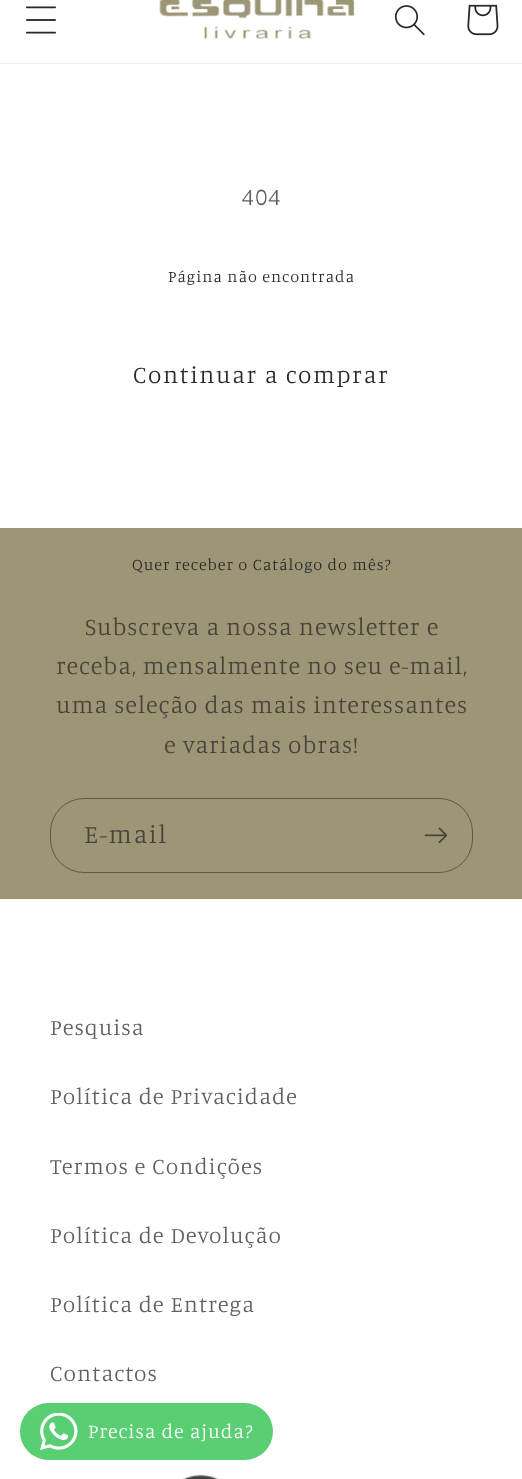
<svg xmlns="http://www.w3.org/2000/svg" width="522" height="1479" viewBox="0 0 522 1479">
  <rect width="100%" height="100%" fill="rgb(255,255,255)"/>
  <rect x="0" y="63" width="522" height="1" fill="rgb(238,238,238)"/>
  <image x="25" y="6" width="31" height="28" href="pic1.png"/>
  <image x="159" y="0" width="196" height="39" href="pic2.png"/>
  <image x="394" y="5" width="31" height="31" href="pic3.png"/>
  <image x="467" y="4" width="32" height="32" href="pic4.png"/>
  <text x="242" y="205" font-family="Manuale" font-size="24.4" font-weight="300" letter-spacing="1" fill="rgb(95,95,95)">404</text>
  <text x="168" y="282" font-family="Manuale" font-size="16.25" font-weight="300" letter-spacing="1" fill="rgb(41,41,41)">Página não encontrada</text>
  <text x="133" y="383" font-family="Manuale" font-size="24.4" font-weight="300" letter-spacing="1.6" fill="rgb(41,41,41)">Continuar a comprar</text>
  <rect x="0" y="528" width="522" height="371" fill="rgb(156,149,118)"/>
  <text x="132" y="570" font-family="Manuale" font-size="16.25" font-weight="300" letter-spacing="1" fill="rgb(41,41,41)">Quer receber o Catálogo do mês?</text>
  <g font-family="Manuale" font-size="24.4" font-weight="300" letter-spacing="1" fill="rgb(70,68,60)">
    <text x="85" y="635">Subscreva a nossa newsletter e</text>
    <text>
      <tspan x="56" y="674">receba, mensalmente no seu e-mail,</tspan>
      <tspan x="56" y="713">uma seleção das mais interessantes</tspan>
    </text>
    <text x="164" y="753">e variadas obras!</text>
  </g>
  <rect x="50.5" y="798.5" width="422" height="74" rx="33.5" fill="none" stroke="rgb(93,90,76)"/>
  <text x="84" y="843" font-family="Manuale" font-size="26" font-weight="300" letter-spacing="1.6" fill="rgb(70,68,60)">E-mail</text>
  <image x="424" y="827" width="24" height="17" href="pic5.png"/>
  <g font-family="Manuale" font-size="22.75" font-weight="300" letter-spacing="1" fill="rgb(95,95,95)">
    <text x="50" y="1035">Pesquisa</text>
    <text x="50" y="1104">Política de Privacidade</text>
    <text x="50" y="1174">Termos e Condições</text>
    <text x="50" y="1243">Política de Devolução</text>
    <text x="50" y="1312">Política de Entrega</text>
    <text x="50" y="1381">Contactos</text>
  </g>
  <image x="182" y="1474" width="37" height="5" href="pic6.png"/>
  <rect x="20" y="1403" width="253" height="57" rx="28.5" fill="rgb(89,206,114)"/>
  <image x="40" y="1413" width="38" height="37" href="pic7.png"/>
  <text x="88" y="1438" font-family="Manuale" font-size="20" font-weight="300" letter-spacing="1" fill="rgb(255,255,255)">Precisa de ajuda?</text>
</svg>
